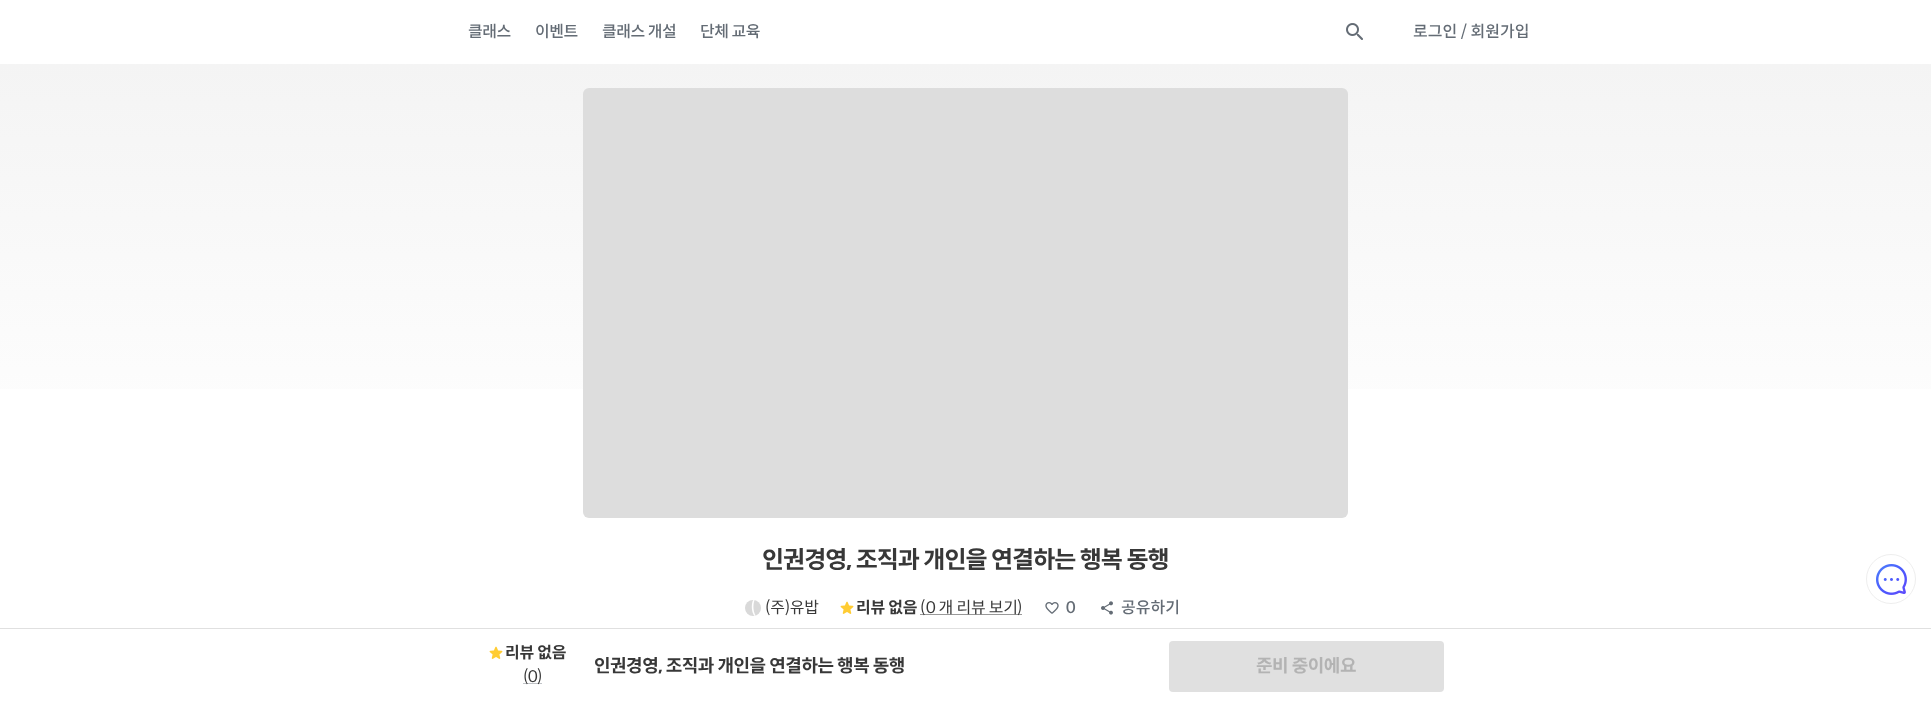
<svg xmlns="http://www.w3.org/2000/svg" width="1931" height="704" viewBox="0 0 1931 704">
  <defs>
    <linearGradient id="g1" gradientUnits="userSpaceOnUse" x1="966" y1="64" x2="966" y2="542"><stop offset="0" stop-color="rgb(244,244,244)"/><stop offset="0.8" stop-color="rgb(254,254,254)"/><stop offset="1" stop-color="rgb(255,255,255)"/></linearGradient>
    <clipPath id="clip1"><rect x="745" y="600" width="16" height="16" rx="8"/></clipPath>
  </defs>
  <rect width="100%" height="100%" fill="rgb(255,255,255)"/>
  <g font-family="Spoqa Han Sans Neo" font-size="16" font-weight="500" letter-spacing="-0.5" fill="rgb(100,108,117)">
    <text x="468" y="37">클래스</text>
    <text x="535" y="37">이벤트</text>
    <text x="602" y="37">클래스 개설</text>
    <text x="700" y="37">단체 교육</text>
  </g>
  <image x="1346" y="23" width="17" height="17" href="pic1.png"/>
  <text x="1413" y="37" font-family="Spoqa Han Sans Neo" font-size="16" font-weight="500" fill="rgb(100,108,117)">로그인 / 회원가입</text>
  <rect x="0" y="64" width="1931" height="325" fill="url(#g1)"/>
  <rect x="583" y="88" width="765" height="430" rx="6" fill="rgb(221,221,221)"/>
  <text x="762" y="568" font-family="Spoqa Han Sans Neo" font-size="24" font-weight="bold" letter-spacing="-1" fill="rgb(56,56,56)">인권경영, 조직과 개인을 연결하는 행복 동행</text>
  <circle cx="753" cy="608" r="8" fill="rgb(217,217,217)"/>
  <g clip-path="url(#clip1)">
    <text x="750" y="614" font-family="Spoqa Han Sans Neo" font-size="20" letter-spacing="-0.5" fill="rgb(255,255,255)">(</text>
  </g>
  <text x="765" y="613" font-family="Spoqa Han Sans Neo" font-size="16" letter-spacing="-0.25" fill="rgb(56,56,56)">(주)유밥</text>
  <image x="840" y="601" width="14" height="13" href="pic2.png"/>
  <text x="856" y="613" font-family="Spoqa Han Sans Neo" font-size="16" font-weight="bold" letter-spacing="-0.25" fill="rgb(56,56,56)">리뷰 없음</text>
  <rect x="920" y="614" width="102" height="1" fill="rgb(153,153,153)"/>
  <g font-family="Spoqa Han Sans Neo" font-size="16" letter-spacing="-0.25" fill="rgb(56,56,56)">
    <text x="920" y="613">(</text>
    <text x="926" y="613">0 개 리뷰 보기</text>
    <text x="1017" y="613">)</text>
  </g>
  <image x="1045" y="602" width="14" height="12" href="pic3.png"/>
  <text x="1066" y="613" font-family="Spoqa Han Sans Neo" font-size="16" font-weight="500" fill="rgb(100,108,117)">0</text>
  <image x="1101" y="601" width="12" height="14" href="pic4.png"/>
  <text x="1121" y="613" font-family="Spoqa Han Sans Neo" font-size="16" font-weight="500" fill="rgb(100,108,117)">공유하기</text>
  <circle cx="1891" cy="579" r="24.5" fill="none" stroke="rgb(238,238,238)"/>
  <image x="1876" y="564" width="31" height="31" href="pic5.png"/>
  <rect x="0" y="628" width="1931" height="1" fill="rgb(224,224,224)"/>
  <image x="489" y="646" width="14" height="13" href="pic2.png"/>
  <text x="505" y="658" font-family="Spoqa Han Sans Neo" font-size="16" font-weight="bold" letter-spacing="-0.25" fill="rgb(56,56,56)">리뷰 없음</text>
  <rect x="523" y="683" width="19" height="1" fill="rgb(193,196,200)"/>
  <g font-family="Spoqa Han Sans Neo" font-size="16" letter-spacing="-0.25" fill="rgb(56,56,56)">
    <text x="523" y="682">(</text>
    <text x="528" y="682">0</text>
    <text x="537" y="682">)</text>
  </g>
  <text x="594" y="672" font-family="Spoqa Han Sans Neo" font-size="18" font-weight="bold" letter-spacing="-0.5" fill="rgb(56,56,56)">인권경영, 조직과 개인을 연결하는 행복 동행</text>
  <rect x="1169" y="641" width="275" height="51" rx="4" fill="rgb(224,224,224)"/>
  <text x="1256" y="672" font-family="Spoqa Han Sans Neo" font-size="18" font-weight="bold" letter-spacing="-0.5" fill="rgb(179,179,179)">준비 중이에요</text>
</svg>
